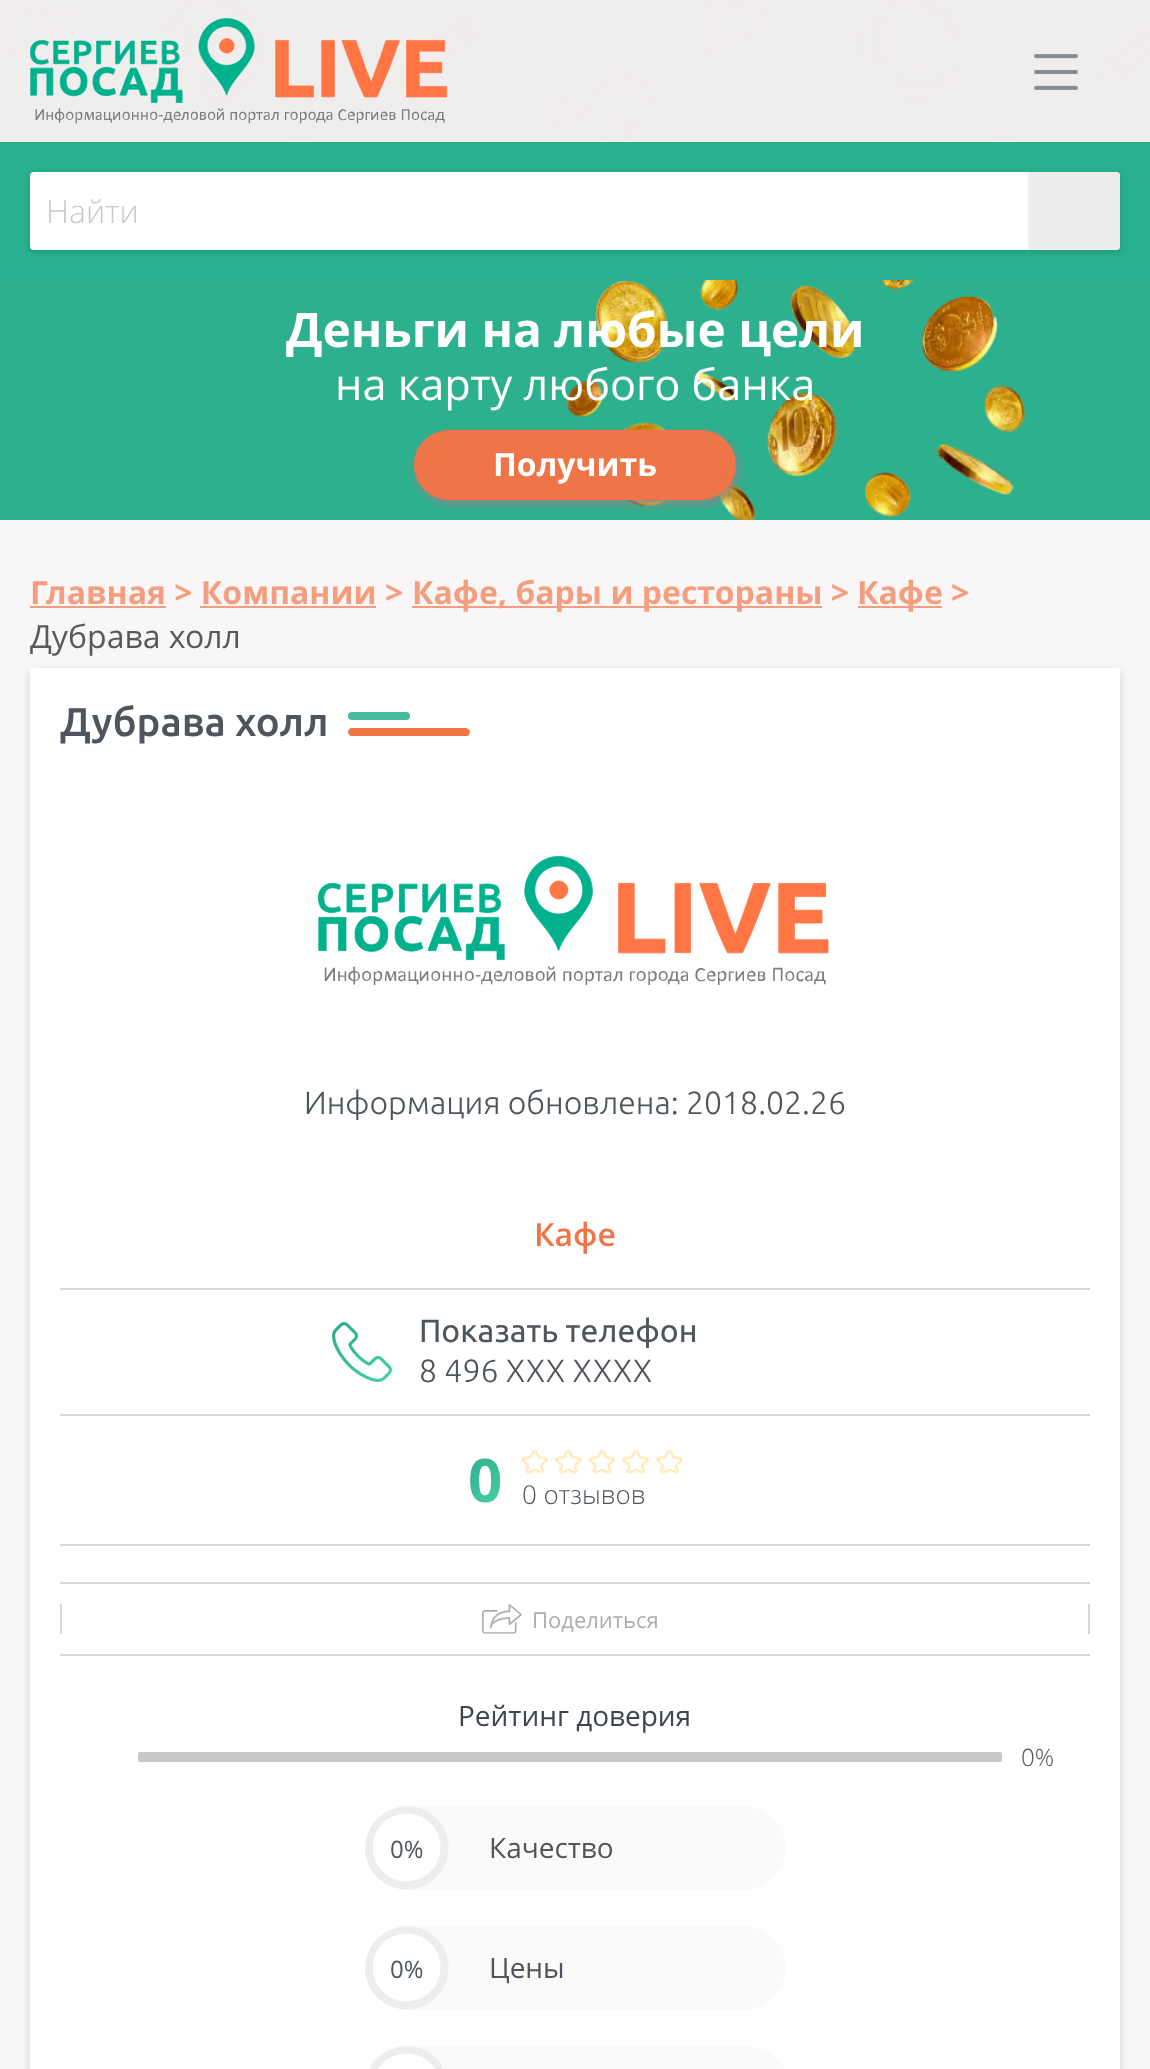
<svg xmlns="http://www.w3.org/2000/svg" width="1150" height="2069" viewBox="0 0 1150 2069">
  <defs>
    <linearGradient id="g1" gradientUnits="userSpaceOnUse" x1="459" y1="1455" x2="511" y2="1506"><stop offset="0" stop-color="rgb(47,171,139)"/><stop offset="1" stop-color="rgb(73,208,170)"/></linearGradient>
  </defs>
  <rect width="100%" height="100%" fill="rgb(255,255,255)"/>
  <image x="0" y="0" width="1150" height="142" href="pic1.png"/>
  <rect x="0" y="0" width="1150" height="142" fill="rgba(239,236,236,0.9)"/>
  <image x="30" y="17" width="418" height="107" href="pic2.png"/>
  <image x="1034" y="54" width="44" height="36" href="pic3.png"/>
  <rect x="0" y="142" width="1150" height="138" fill="rgb(40,177,142)"/>
  <rect x="30" y="174" width="1090" height="78" rx="4" fill="rgba(0,0,0,0.15)" filter="blur(3px)"/>
  <rect x="30" y="172" width="1090" height="78" rx="4" fill="rgb(255,255,255)"/>
  <text x="46" y="223" font-family="Open Sans" font-size="32" font-weight="300" fill="rgb(200,200,200)">Найти</text>
  <rect x="1028" y="172" width="92" height="78" rx="4" fill="rgb(239,236,236)"/>
  <rect x="0" y="280" width="1150" height="240" fill="rgb(45,176,142)"/>
  <image x="566" y="280" width="460" height="240" href="pic4.png"/>
  <text x="286" y="347" font-family="Open Sans" font-size="47.8" font-weight="bold" fill="rgb(255,255,255)">Деньги на любые цели</text>
  <text x="335" y="400" font-family="Open Sans" font-size="43.25" fill="rgb(255,255,255)">на карту любого банка</text>
  <rect x="416" y="434" width="322" height="70" rx="35" fill="rgb(136,136,136)" filter="blur(5px)"/>
  <rect x="414" y="430" width="322" height="70" rx="35" fill="rgb(239,116,72)"/>
  <text x="493" y="476" font-family="Open Sans" font-size="32" font-weight="bold" fill="rgb(255,255,255)">Получить</text>
  <rect x="0" y="520" width="1150" height="1549" fill="rgb(248,246,246)"/>
  <text x="30" y="604" font-family="Open Sans" font-size="32" font-weight="bold" fill="rgb(245,158,127)">Главная &gt; Компании &gt;</text>
  <rect x="30" y="606" width="136" height="2" fill="rgb(245,158,127)"/>
  <rect x="412" y="606" width="410" height="2" fill="rgb(245,158,127)"/>
  <text x="412" y="604" font-family="Open Sans" font-size="32" font-weight="bold" fill="rgb(245,158,127)">Кафе, бары и рестораны &gt;</text>
  <rect x="858" y="606" width="84" height="2" fill="rgb(245,158,127)"/>
  <text x="857" y="604" font-family="Open Sans" font-size="32" font-weight="bold" fill="rgb(245,158,127)">Кафе &gt;</text>
  <rect x="200" y="606" width="176" height="2" fill="rgb(245,158,127)"/>
  <text x="30" y="648" font-family="Open Sans" font-size="32" fill="rgb(86,90,93)">Дубрава холл</text>
  <rect x="30" y="672" width="1090" height="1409" fill="rgba(0,0,0,0.15)" filter="blur(4px)"/>
  <rect x="30" y="668" width="1090" height="1401" fill="rgb(255,255,255)"/>
  <rect x="348" y="712" width="62" height="8" rx="4" fill="rgb(70,188,158)"/>
  <path d="M352 728H466L468 729C471 730 470 734 468 736H351C347 735 347 728 352 728Z" fill="rgb(241,116,71)"/>
  <text x="60" y="736" font-family="Ubuntu" font-size="40" font-weight="500" fill="rgb(79,85,92)">Дубрава холл</text>
  <image x="318" y="855" width="511" height="130" href="pic5.png"/>
  <text x="304" y="1114" font-family="Ubuntu" font-size="32" font-weight="300" fill="rgb(79,85,92)">Информация обновлена: 2018.02.26</text>
  <rect x="60" y="1288" width="1030" height="2" fill="rgb(216,216,216)"/>
  <text x="534" y="1246" font-family="Open Sans" font-size="32" font-weight="600" fill="rgb(241,116,71)">Кафе</text>
  <rect x="60" y="1414" width="1030" height="2" fill="rgb(216,216,216)"/>
  <image x="332" y="1322" width="60" height="60" href="pic6.png"/>
  <text x="419" y="1342" font-family="Ubuntu" font-size="32" fill="rgb(79,85,92)">Показать телефон</text>
  <text x="419" y="1382" font-family="Ubuntu" font-size="32" font-weight="300" fill="rgb(79,85,92)">8 496 XXX XXXX</text>
  <rect x="60" y="1544" width="1030" height="2" fill="rgb(216,216,216)"/>
  <text x="468" y="1502" font-family="Open Sans" font-size="60" font-weight="bold" fill="url(#g1)">0</text>
  <image x="522" y="1450" width="160" height="24" href="pic7.png"/>
  <text x="522" y="1504" font-family="Open Sans" font-size="26" font-weight="300" fill="rgb(79,85,92)">0 отзывов</text>
  <rect x="60" y="1582" width="1030" height="2" fill="rgb(216,216,216)"/>
  <rect x="60" y="1654" width="1030" height="2" fill="rgb(216,216,216)"/>
  <rect x="1088" y="1604" width="2" height="30" fill="rgb(216,216,216)"/>
  <rect x="60" y="1604" width="2" height="30" fill="rgb(216,216,216)"/>
  <image x="482" y="1604" width="40" height="30" href="pic8.png"/>
  <text x="532" y="1628" font-family="Open Sans" font-size="22" fill="rgb(173,173,173)">Поделиться</text>
  <text x="458" y="1726" font-family="Open Sans" font-size="28" fill="rgb(62,70,76)">Рейтинг доверия</text>
  <rect x="138" y="1752" width="864" height="10" rx="2" fill="rgb(201,201,201)"/>
  <text x="1021" y="1766" font-family="Open Sans" font-size="24" font-weight="300" fill="rgb(79,85,92)">0%</text>
  <rect x="366" y="1806" width="420" height="84" rx="42" fill="rgb(252,249,249)"/>
  <image x="365" y="1806" width="84" height="84" href="pic9.png"/>
  <text x="390" y="1858" font-family="Open Sans" font-size="24" fill="rgb(79,85,92)">0%</text>
  <text x="489" y="1858" font-family="Open Sans" font-size="28" fill="rgb(79,85,92)">Качество</text>
  <rect x="366" y="1926" width="420" height="84" rx="42" fill="rgb(252,249,249)"/>
  <image x="365" y="1926" width="84" height="84" href="pic9.png"/>
  <text x="390" y="1978" font-family="Open Sans" font-size="24" fill="rgb(79,85,92)">0%</text>
  <text x="489" y="1978" font-family="Open Sans" font-size="28" fill="rgb(79,85,92)">Цены</text>
  <rect x="366" y="2046" width="420" height="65" rx="42" fill="rgb(252,249,249)"/>
  <image x="370" y="2046" width="74" height="23" href="pic10.png"/>
</svg>
